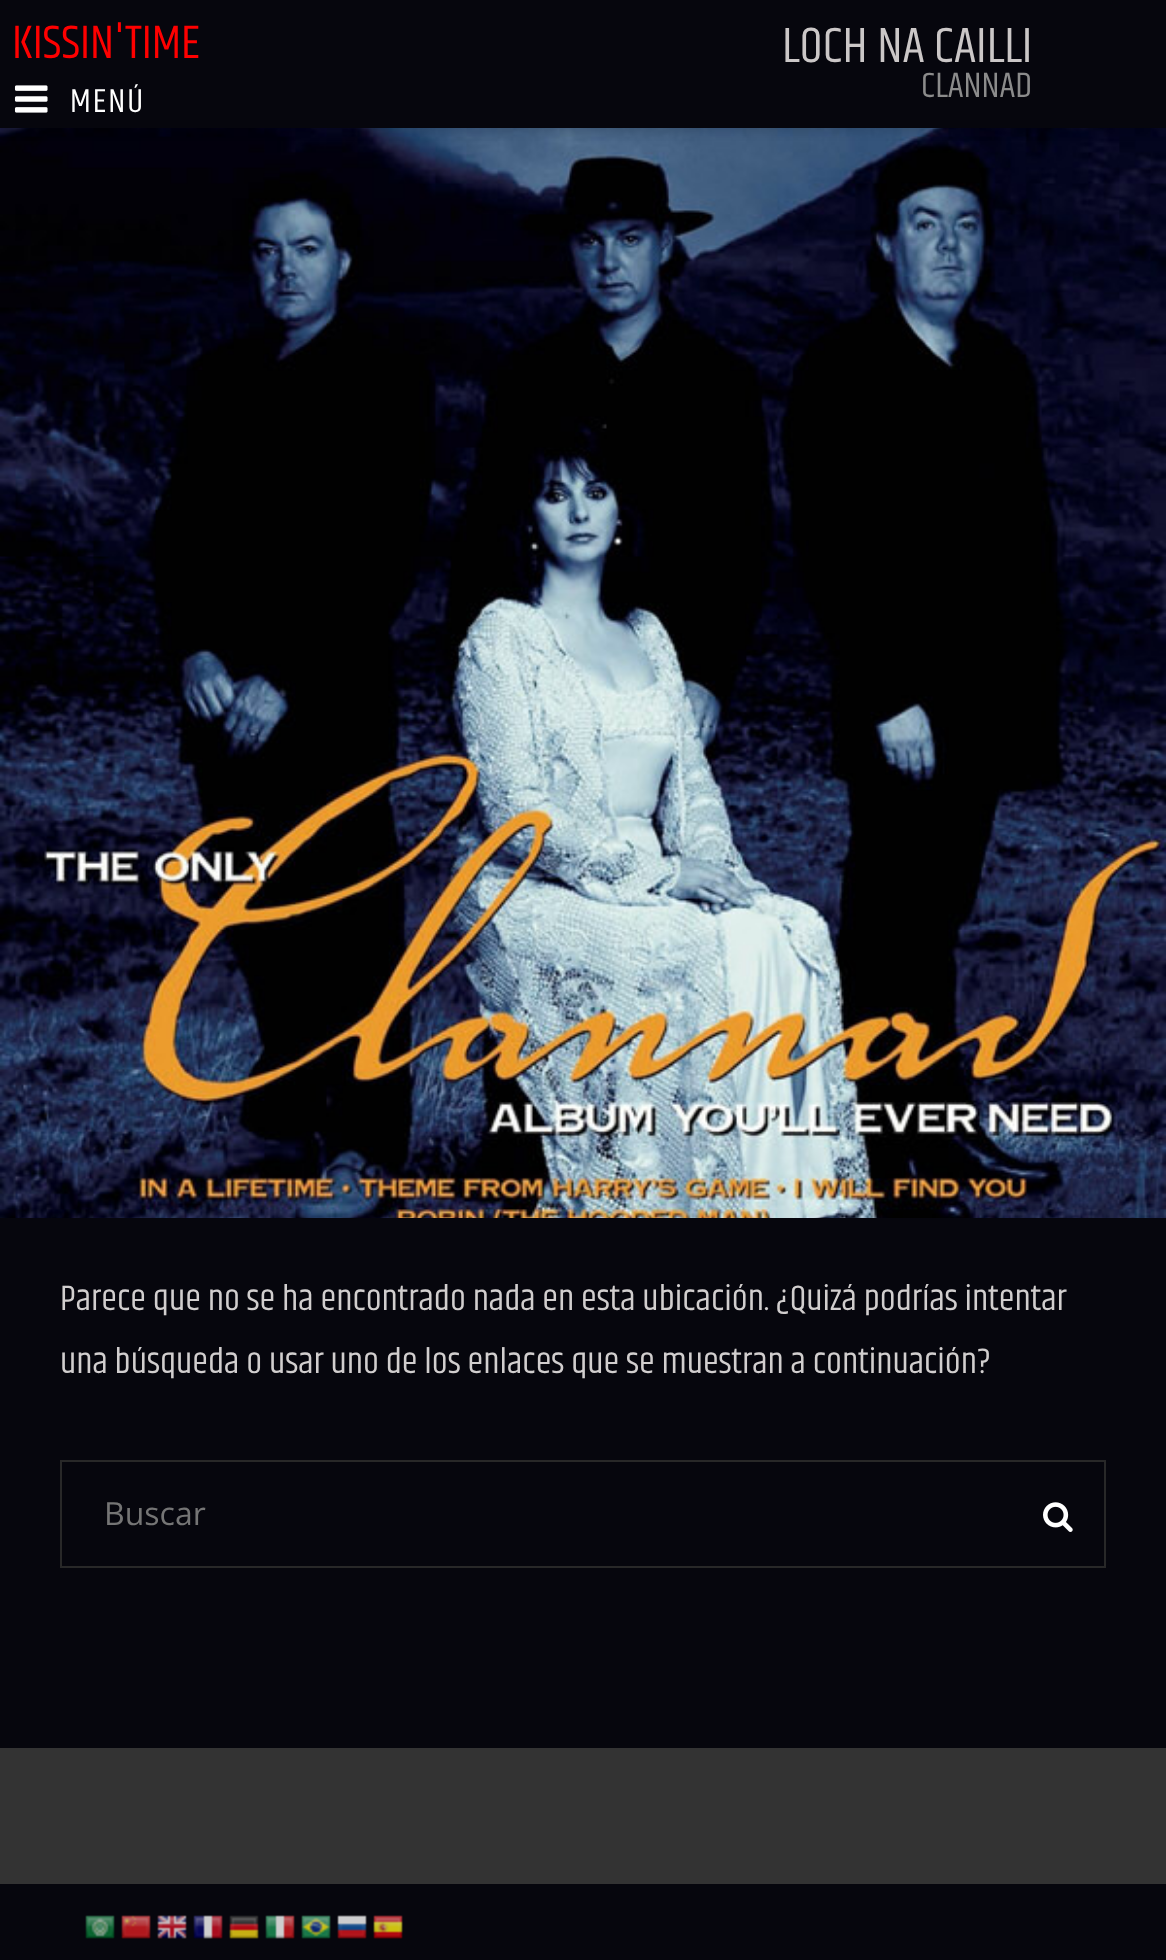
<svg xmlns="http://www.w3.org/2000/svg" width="1166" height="1960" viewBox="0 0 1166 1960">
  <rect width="100%" height="100%" fill="rgb(51,51,51)"/>
  <image x="0" y="128" width="1166" height="1090" href="pic2.png"/>
  <rect x="0" y="4" width="1166" height="128" fill="rgba(0,0,0,0.1)" filter="blur(5px)"/>
  <rect x="0" y="0" width="1166" height="128" fill="rgb(6,6,13)"/>
  <text x="12" y="58" font-family="Khand" font-size="48" fill="rgb(255,0,0)">KISSIN'TIME</text>
  <text x="782" y="62" font-family="Khand" font-size="50.5" fill="rgb(203,199,199)">LOCH NA CAILLI</text>
  <text x="921" y="97" font-family="Khand" font-size="36" fill="rgb(139,139,139)">CLANNAD</text>
  <image x="14" y="85" width="34" height="28" href="pic1.png"/>
  <text x="70" y="112" font-family="Khand" font-size="34" letter-spacing="2" fill="rgb(255,255,255)">MENÚ</text>
  <rect x="0" y="1218" width="1166" height="530" fill="rgb(6,6,13)"/>
  <g font-family="Khand" font-size="36" fill="rgb(209,206,206)">
    <text>
      <tspan x="60" y="1310">Parece que no se ha encontrado nada en esta ubicación. ¿Quizá podrías intentar</tspan>
      <tspan x="60" y="1373">una búsqueda o usar uno de los enlaces que se muestran a continuación?</tspan>
    </text>
  </g>
  <rect x="61" y="1461" width="1044" height="106" fill="none" stroke="rgb(40,40,40)" stroke-width="2"/>
  <text x="104" y="1525" font-family="Open Sans" font-size="32" fill="rgb(117,117,117)">Buscar</text>
  <image x="1043" y="1502" width="30" height="30" href="pic3.png"/>
  <rect x="0" y="1884" width="1166" height="76" fill="rgb(6,6,13)"/>
  <image x="85" y="1915" width="30" height="24" href="pic4.png"/>
  <image x="121" y="1915" width="30" height="24" href="pic5.png"/>
  <image x="157" y="1915" width="30" height="24" href="pic6.png"/>
  <image x="193" y="1915" width="30" height="24" href="pic7.png"/>
  <image x="229" y="1915" width="30" height="24" href="pic8.png"/>
  <image x="265" y="1915" width="30" height="24" href="pic9.png"/>
  <image x="301" y="1915" width="30" height="24" href="pic10.png"/>
  <image x="337" y="1915" width="30" height="24" href="pic11.png"/>
  <image x="373" y="1915" width="30" height="24" href="pic12.png"/>
</svg>
